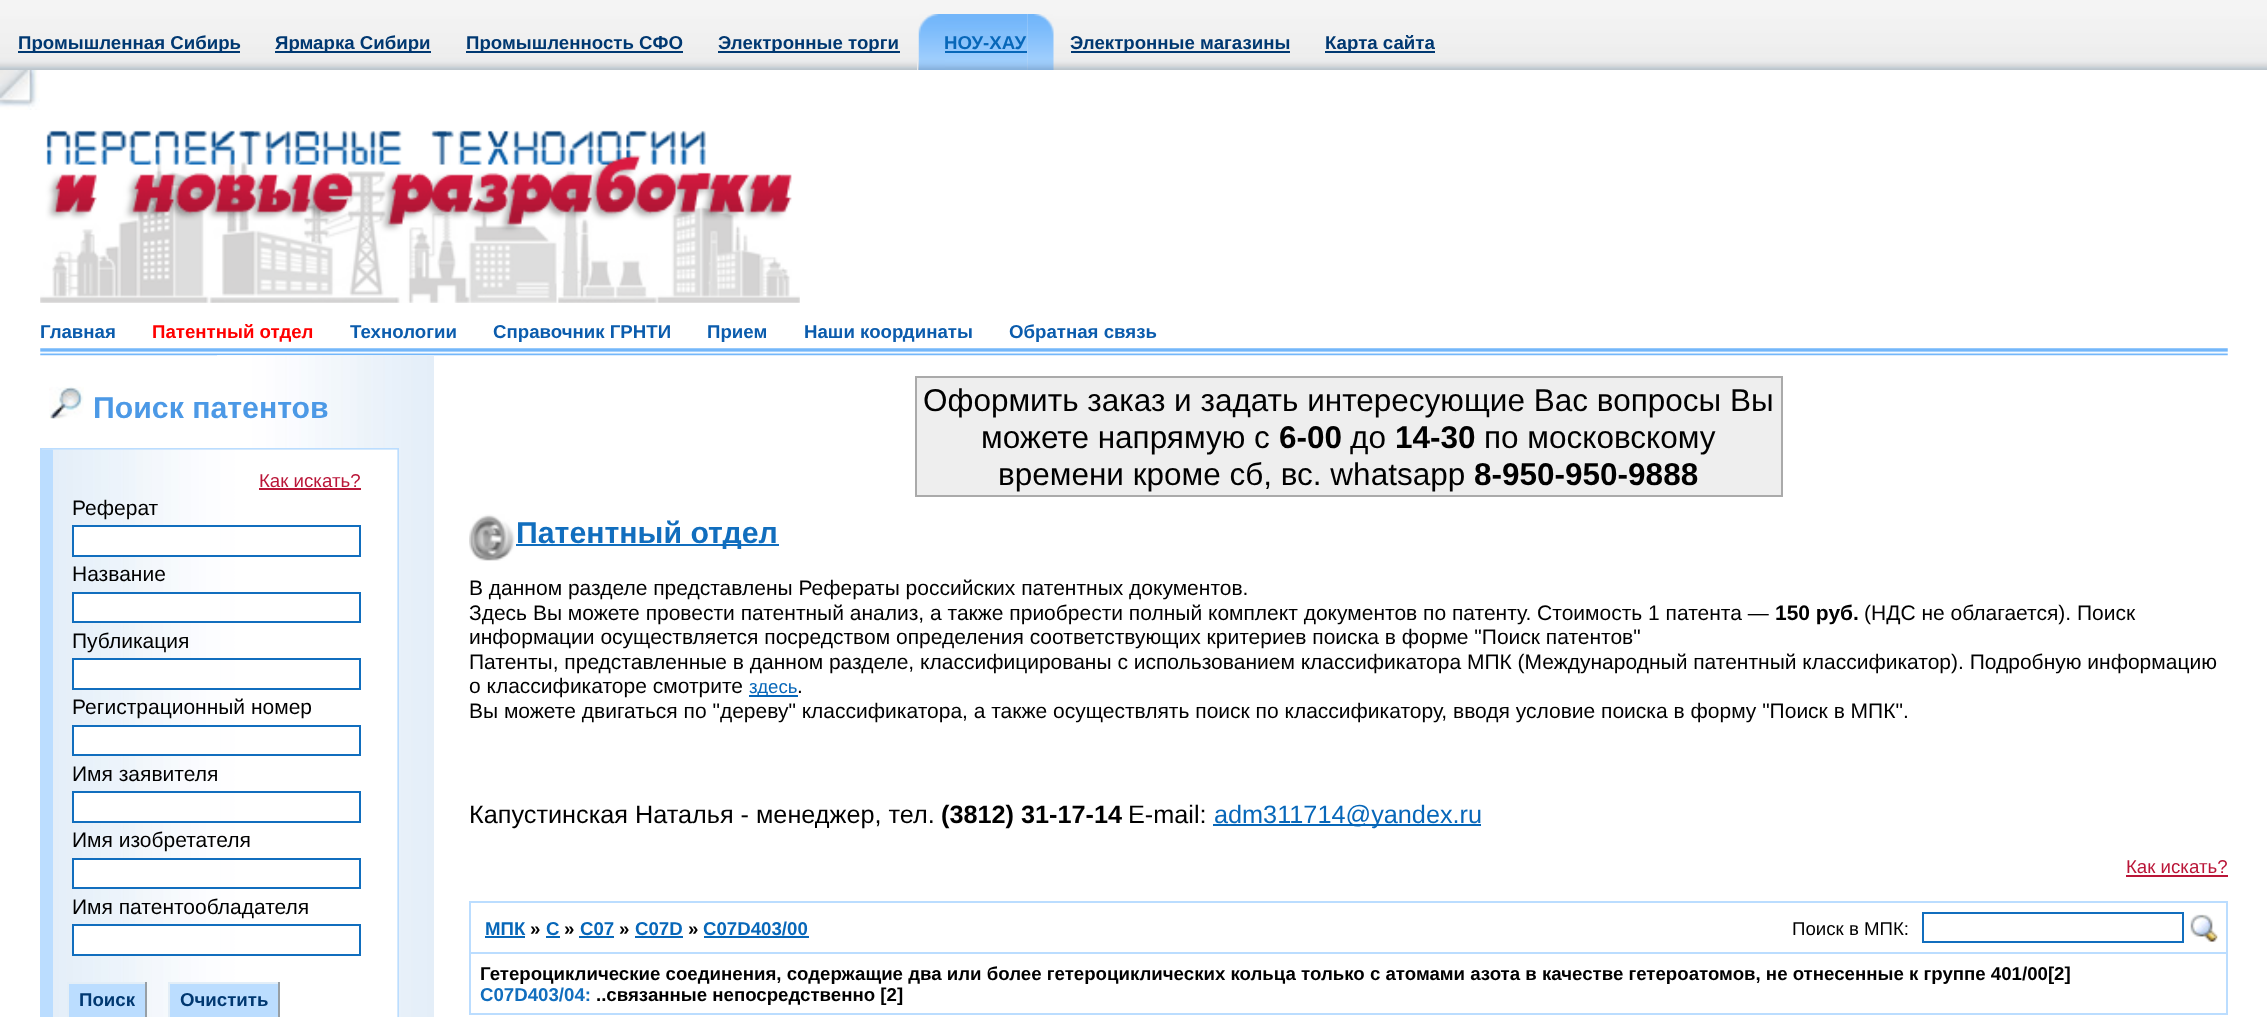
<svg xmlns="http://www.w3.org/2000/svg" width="2267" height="1017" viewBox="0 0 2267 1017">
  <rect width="100%" height="100%" fill="rgb(255,255,255)"/>
  <image x="0" y="0" width="2267" height="70" href="pic1.png"/>
  <rect x="18" y="51" width="222" height="2" fill="rgb(0,56,113)"/>
  <text x="18" y="49" font-family="Liberation Sans" font-size="18.67" font-weight="bold" fill="rgb(0,56,113)">Промышленная Сибирь</text>
  <rect x="275" y="51" width="156" height="2" fill="rgb(0,56,113)"/>
  <text x="275" y="49" font-family="Liberation Sans" font-size="18.67" font-weight="bold" fill="rgb(0,56,113)">Ярмарка Сибири</text>
  <rect x="466" y="51" width="217" height="2" fill="rgb(0,56,113)"/>
  <text x="466" y="49" font-family="Liberation Sans" font-size="18.67" font-weight="bold" fill="rgb(0,56,113)">Промышленность СФО</text>
  <rect x="718" y="51" width="182" height="2" fill="rgb(0,56,113)"/>
  <text x="718" y="49" font-family="Liberation Sans" font-size="18.67" font-weight="bold" fill="rgb(0,56,113)">Электронные торги</text>
  <image x="918" y="14" width="27" height="56" href="pic2.png"/>
  <image x="945" y="14" width="83" height="56" href="pic3.png"/>
  <text x="944" y="49" font-family="Liberation Sans" font-size="18.67" font-weight="bold" fill="rgb(7,103,185)">НОУ-ХАУ</text>
  <rect x="945" y="51" width="82" height="2" fill="rgb(7,103,185)"/>
  <image x="1027" y="14" width="27" height="56" href="pic4.png"/>
  <rect x="1071" y="51" width="219" height="2" fill="rgb(0,56,113)"/>
  <text x="1070" y="49" font-family="Liberation Sans" font-size="18.67" font-weight="bold" fill="rgb(0,56,113)">Электронные магазины</text>
  <rect x="1325" y="51" width="110" height="2" fill="rgb(0,56,113)"/>
  <text x="1325" y="49" font-family="Liberation Sans" font-size="18.67" font-weight="bold" fill="rgb(0,56,113)">Карта сайта</text>
  <image x="917" y="61" width="1" height="9" href="pic5.png"/>
  <image x="0" y="70" width="40" height="40" href="pic6.png"/>
  <image x="40" y="130" width="760" height="173" href="pic7.png"/>
  <image x="40" y="348" width="2188" height="8" href="pic8.png"/>
  <text x="40" y="338" font-family="Liberation Sans" font-size="18.67" font-weight="bold" fill="rgb(11,92,173)">Главная</text>
  <text x="152" y="338" font-family="Liberation Sans" font-size="18.67" font-weight="bold" fill="rgb(255,0,0)">Патентный отдел</text>
  <g font-family="Liberation Sans" font-size="18.67" font-weight="bold" fill="rgb(11,92,173)">
    <text x="350" y="338">Технологии</text>
    <text x="493" y="338">Справочник ГРНТИ</text>
    <text x="707" y="338">Прием</text>
    <text x="804" y="338">Наши координаты</text>
    <text x="1009" y="338">Обратная связь</text>
  </g>
  <image x="217" y="355" width="217" height="662" href="pic9.png"/>
  <image x="49" y="386" width="35" height="33" href="pic10.png"/>
  <text x="93" y="418" font-family="Liberation Sans" font-size="30.25" font-weight="bold" fill="rgb(76,153,230)">Поиск патентов</text>
  <rect x="40" y="448" width="359" height="569" fill="rgb(187,221,255)"/>
  <image x="42" y="449" width="356" height="568" href="pic11.png"/>
  <rect x="42" y="450" width="11" height="567" fill="rgb(187,221,255)"/>
  <text x="259" y="487" font-family="Liberation Sans" font-size="18.67" fill="rgb(186,22,56)">Как искать?</text>
  <rect x="259" y="488" width="102" height="2" fill="rgb(186,22,56)"/>
  <text x="72" y="515" font-family="Liberation Sans" font-size="21" fill="rgb(0,0,0)">Реферат</text>
  <rect x="74" y="527" width="146" height="28" fill="rgb(255,255,255)"/>
  <rect x="73" y="526" width="287" height="30" fill="none" stroke="rgb(17,110,190)" stroke-width="2"/>
  <text x="72" y="581" font-family="Liberation Sans" font-size="21" fill="rgb(0,0,0)">Название</text>
  <rect x="74" y="594" width="146" height="27" fill="rgb(255,255,255)"/>
  <rect x="73" y="593" width="287" height="29" fill="none" stroke="rgb(17,110,190)" stroke-width="2"/>
  <text x="72" y="648" font-family="Liberation Sans" font-size="21" fill="rgb(0,0,0)">Публикация</text>
  <rect x="74" y="660" width="146" height="28" fill="rgb(255,255,255)"/>
  <rect x="73" y="659" width="287" height="30" fill="none" stroke="rgb(17,110,190)" stroke-width="2"/>
  <text x="72" y="714" font-family="Liberation Sans" font-size="21" fill="rgb(0,0,0)">Регистрационный номер</text>
  <rect x="74" y="727" width="146" height="27" fill="rgb(255,255,255)"/>
  <rect x="73" y="726" width="287" height="29" fill="none" stroke="rgb(17,110,190)" stroke-width="2"/>
  <text x="72" y="781" font-family="Liberation Sans" font-size="21" fill="rgb(0,0,0)">Имя заявителя</text>
  <rect x="74" y="793" width="146" height="28" fill="rgb(255,255,255)"/>
  <rect x="73" y="792" width="287" height="30" fill="none" stroke="rgb(17,110,190)" stroke-width="2"/>
  <text x="72" y="847" font-family="Liberation Sans" font-size="21" fill="rgb(0,0,0)">Имя изобретателя</text>
  <rect x="74" y="860" width="146" height="27" fill="rgb(255,255,255)"/>
  <rect x="73" y="859" width="287" height="29" fill="none" stroke="rgb(17,110,190)" stroke-width="2"/>
  <text x="72" y="914" font-family="Liberation Sans" font-size="21" fill="rgb(0,0,0)">Имя патентообладателя</text>
  <rect x="74" y="926" width="146" height="28" fill="rgb(255,255,255)"/>
  <rect x="73" y="925" width="287" height="30" fill="none" stroke="rgb(17,110,190)" stroke-width="2"/>
  <rect x="69" y="984" width="76" height="33" fill="rgb(187,221,255)"/>
  <rect x="67" y="982" width="80" height="2" fill="rgb(227,238,247)"/>
  <rect x="145" y="982" width="2" height="35" fill="rgb(151,159,165)"/>
  <rect x="67" y="982" width="2" height="35" fill="rgb(227,238,247)"/>
  <text x="79" y="1006" font-family="Liberation Sans" font-size="18.67" font-weight="bold" fill="rgb(0,56,113)">Поиск</text>
  <rect x="170" y="984" width="108" height="33" fill="rgb(187,221,255)"/>
  <rect x="168" y="982" width="112" height="2" fill="rgb(227,238,247)"/>
  <rect x="278" y="982" width="2" height="35" fill="rgb(151,159,165)"/>
  <rect x="168" y="982" width="2" height="35" fill="rgb(227,238,247)"/>
  <text x="180" y="1006" font-family="Liberation Sans" font-size="18.67" font-weight="bold" fill="rgb(0,56,113)">Очистить</text>
  <rect x="916" y="377" width="866" height="119" fill="rgb(238,238,238)" stroke="rgb(170,170,170)" stroke-width="2"/>
  <g font-family="Liberation Sans" font-size="31.5" fill="rgb(0,0,0)">
    <text x="923" y="411">Оформить заказ и задать интересующие Вас вопросы Вы</text>
    <text x="981" y="448">можете напрямую c</text>
  </g>
  <text x="1279" y="448" font-family="Liberation Sans" font-size="31.5" font-weight="bold" fill="rgb(0,0,0)">6-00</text>
  <text x="1350" y="448" font-family="Liberation Sans" font-size="31.5" fill="rgb(0,0,0)">до</text>
  <text x="1395" y="448" font-family="Liberation Sans" font-size="31.5" font-weight="bold" fill="rgb(0,0,0)">14-30</text>
  <g font-family="Liberation Sans" font-size="31.5" fill="rgb(0,0,0)">
    <text x="1484" y="448">по московскому</text>
    <text x="998" y="485">времени кроме сб, вс. whatsapp</text>
  </g>
  <text x="1474" y="485" font-family="Liberation Sans" font-size="31.5" font-weight="bold" fill="rgb(0,0,0)">8-950-950-9888</text>
  <image x="469" y="514" width="46" height="47" href="pic12.png"/>
  <rect x="516" y="544" width="263" height="2" fill="rgb(17,110,190)"/>
  <text x="516" y="543" font-family="Liberation Sans" font-size="30.25" font-weight="bold" fill="rgb(17,110,190)">Патентный отдел</text>
  <g font-family="Liberation Sans" font-size="21" fill="rgb(0,0,0)">
    <text>
      <tspan x="469" y="595">В данном разделе представлены Рефераты российских патентных документов.</tspan>
      <tspan x="469" y="620">Здесь Вы можете провести патентный анализ, а также приобрести полный комплект документов по патенту. Стоимость 1 патента —</tspan>
    </text>
  </g>
  <text x="1775" y="620" font-family="Liberation Sans" font-size="21" font-weight="bold" fill="rgb(0,0,0)">150 руб.</text>
  <g font-family="Liberation Sans" font-size="21" fill="rgb(0,0,0)">
    <text x="1864" y="620">(НДС не облагается). Поиск</text>
    <text>
      <tspan x="469" y="644">информации осуществляется посредством определения соответствующих критериев поиска в форме "Поиск патентов"</tspan>
      <tspan x="469" y="669">Патенты, представленные в данном разделе, классифицированы с использованием классификатора МПК (Международный патентный классификатор). Подробную информацию</tspan>
      <tspan x="469" y="693">о классификаторе смотрите</tspan>
    </text>
  </g>
  <rect x="749" y="695" width="49" height="2" fill="rgb(7,103,185)"/>
  <text x="749" y="693" font-family="Liberation Sans" font-size="18.67" fill="rgb(7,103,185)">здесь</text>
  <g font-family="Liberation Sans" font-size="21" fill="rgb(0,0,0)">
    <text x="797" y="693">.</text>
    <text x="469" y="718">Вы можете двигаться по "дереву" классификатора, а также осуществлять поиск по классификатору, вводя условие поиска в форму "Поиск в МПК".</text>
  </g>
  <text x="469" y="823" font-family="Liberation Sans" font-size="25.25" fill="rgb(0,0,0)">Капустинская Наталья - менеджер, тел.</text>
  <text x="941" y="823" font-family="Liberation Sans" font-size="25.25" font-weight="bold" fill="rgb(0,0,0)">(3812) 31-17-14</text>
  <text x="1128" y="823" font-family="Liberation Sans" font-size="25.25" fill="rgb(0,0,0)">E-mail:</text>
  <rect x="1213" y="824" width="268" height="2" fill="rgb(7,103,185)"/>
  <text x="1214" y="823" font-family="Liberation Sans" font-size="25.25" fill="rgb(7,103,185)">adm311714@yandex.ru</text>
  <text x="2126" y="873" font-family="Liberation Sans" font-size="18.67" fill="rgb(186,22,56)">Как искать?</text>
  <rect x="2126" y="875" width="102" height="2" fill="rgb(186,22,56)"/>
  <rect x="469" y="901" width="1759" height="114" fill="rgb(187,221,255)"/>
  <rect x="471" y="903" width="1755" height="49" fill="rgb(255,255,255)"/>
  <text x="485" y="935" font-family="Liberation Sans" font-size="18.67" font-weight="bold" fill="rgb(7,103,185)">МПК</text>
  <rect x="485" y="936" width="40" height="2" fill="rgb(7,103,185)"/>
  <text x="530" y="935" font-family="Liberation Sans" font-size="18.67" font-weight="bold" fill="rgb(0,0,0)">»</text>
  <text x="546" y="935" font-family="Liberation Sans" font-size="18.67" font-weight="bold" fill="rgb(7,103,185)">C</text>
  <rect x="546" y="936" width="14" height="2" fill="rgb(7,103,185)"/>
  <text x="564" y="935" font-family="Liberation Sans" font-size="18.67" font-weight="bold" fill="rgb(0,0,0)">»</text>
  <text x="580" y="935" font-family="Liberation Sans" font-size="18.67" font-weight="bold" fill="rgb(7,103,185)">C07</text>
  <rect x="579" y="936" width="35" height="2" fill="rgb(7,103,185)"/>
  <text x="619" y="935" font-family="Liberation Sans" font-size="18.67" font-weight="bold" fill="rgb(0,0,0)">»</text>
  <text x="635" y="935" font-family="Liberation Sans" font-size="18.67" font-weight="bold" fill="rgb(7,103,185)">C07D</text>
  <rect x="635" y="936" width="48" height="2" fill="rgb(7,103,185)"/>
  <text x="688" y="935" font-family="Liberation Sans" font-size="18.67" font-weight="bold" fill="rgb(0,0,0)">»</text>
  <text x="703" y="935" font-family="Liberation Sans" font-size="18.67" font-weight="bold" fill="rgb(7,103,185)">C07D403/00</text>
  <rect x="704" y="936" width="105" height="2" fill="rgb(7,103,185)"/>
  <text x="1792" y="935" font-family="Liberation Sans" font-size="18.67" fill="rgb(0,0,0)">Поиск в МПК:</text>
  <rect x="1923" y="913" width="260" height="29" fill="none" stroke="rgb(17,110,190)" stroke-width="2"/>
  <image x="2190" y="914" width="28" height="28" href="pic13.png"/>
  <rect x="471" y="954" width="1755" height="59" fill="rgb(255,255,255)"/>
  <text x="480" y="980" font-family="Liberation Sans" font-size="18.67" font-weight="bold" fill="rgb(0,0,0)">Гетероциклические соединения, содержащие два или более гетероциклических кольца только с атомами азота в качестве гетероатомов, не отнесенные к группе 401/00[2]</text>
  <text x="480" y="1001" font-family="Liberation Sans" font-size="18.67" font-weight="bold" fill="rgb(17,110,190)">C07D403/04:</text>
  <text x="596" y="1001" font-family="Liberation Sans" font-size="18.67" font-weight="bold" fill="rgb(0,0,0)">..связанные непосредственно [2]</text>
</svg>
